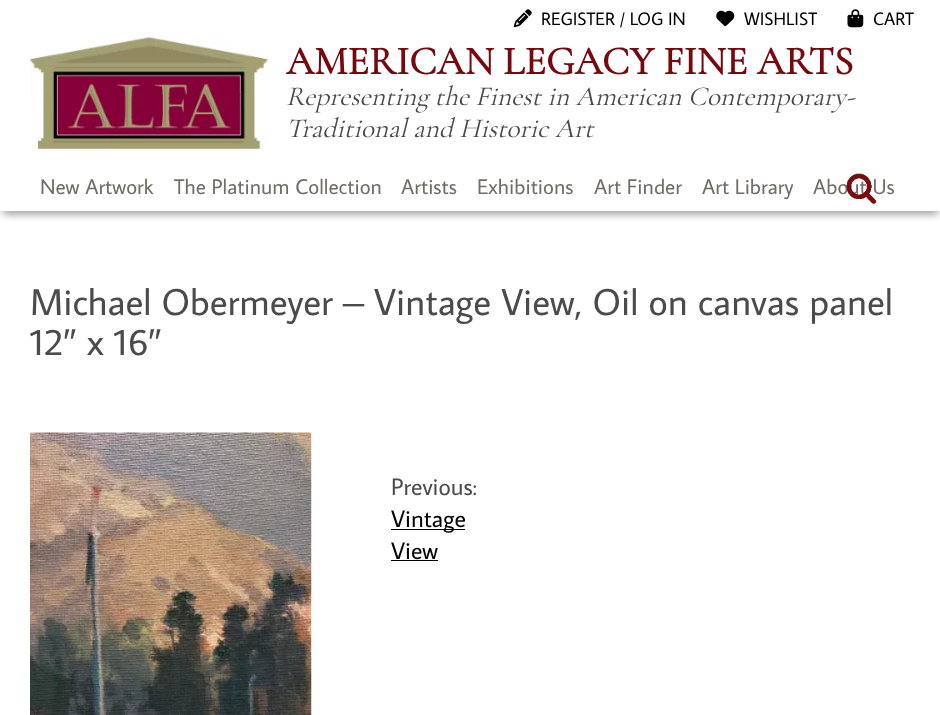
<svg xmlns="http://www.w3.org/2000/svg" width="940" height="715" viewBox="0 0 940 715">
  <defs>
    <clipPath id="clip1"><rect x="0" y="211" width="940" height="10"/></clipPath>
  </defs>
  <rect width="100%" height="100%" fill="rgb(255,255,255)"/>
  <g clip-path="url(#clip1)">
    <rect x="3" y="8" width="935" height="206" fill="rgba(0,0,0,0.4)" filter="blur(4px)"/>
  </g>
  <image x="513" y="9" width="19" height="19" href="pic1.png"/>
  <text x="541" y="25" font-family="Average Sans" font-size="18" fill="rgb(0,0,0)">REGISTER / LOG IN</text>
  <image x="716" y="10" width="19" height="17" href="pic2.png"/>
  <text x="744" y="25" font-family="Average Sans" font-size="18" fill="rgb(0,0,0)">WISHLIST</text>
  <image x="847" y="9" width="17" height="19" href="pic3.png"/>
  <text x="873" y="25" font-family="Average Sans" font-size="18" fill="rgb(0,0,0)">CART</text>
  <image x="30" y="37" width="238" height="112" href="pic4.png"/>
  <text x="286" y="74" font-family="Cormorant Garamond" font-size="40" font-weight="bold" fill="rgb(118,9,14)">AMERICAN LEGACY FINE ARTS</text>
  <g font-family="Cormorant Garamond" font-size="27.5" font-weight="300" font-style="italic" fill="rgb(75,75,75)">
    <text>
      <tspan x="286" y="105">Representing the Finest in American Contemporary-</tspan>
      <tspan x="286" y="137">Traditional and Historic Art</tspan>
    </text>
  </g>
  <text x="813" y="194" font-family="Average Sans" font-size="21.25" fill="rgb(115,109,103)">About Us</text>
  <image x="846" y="173" width="31" height="31" href="pic5.png"/>
  <g font-family="Average Sans" font-size="21.25" fill="rgb(115,109,103)">
    <text x="40" y="194">New Artwork</text>
    <text x="174" y="194">The Platinum Collection</text>
    <text x="401" y="194">Artists</text>
    <text x="477" y="194">Exhibitions</text>
    <text x="594" y="194">Art Finder</text>
    <text x="702" y="194">Art Library</text>
  </g>
  <g font-family="Average Sans" font-size="37.5" fill="rgb(75,75,75)">
    <text>
      <tspan x="30" y="315">Michael Obermeyer – Vintage View, Oil on canvas panel</tspan>
      <tspan x="30" y="355">12</tspan>
    </text>
  </g>
  <text x="63" y="355" font-family="Liberation Sans" font-size="37.5" fill="rgb(75,75,75)">″</text>
  <text x="87" y="355" font-family="Average Sans" font-size="37.5" fill="rgb(75,75,75)">x 16</text>
  <text x="148" y="355" font-family="Liberation Sans" font-size="37.5" fill="rgb(75,75,75)">″</text>
  <image x="30" y="432" width="282" height="283" href="pic6.png"/>
  <text x="391" y="495" font-family="Average Sans" font-size="24" fill="rgb(75,75,75)">Previous:</text>
  <rect x="391" y="529" width="74" height="1" fill="rgb(0,0,0)"/>
  <g font-family="Average Sans" font-size="24" fill="rgb(0,0,0)">
    <text>
      <tspan x="391" y="527">Vintage</tspan>
      <tspan x="391" y="559">View</tspan>
    </text>
  </g>
  <rect x="391" y="560" width="47" height="1" fill="rgb(0,0,0)"/>
</svg>
